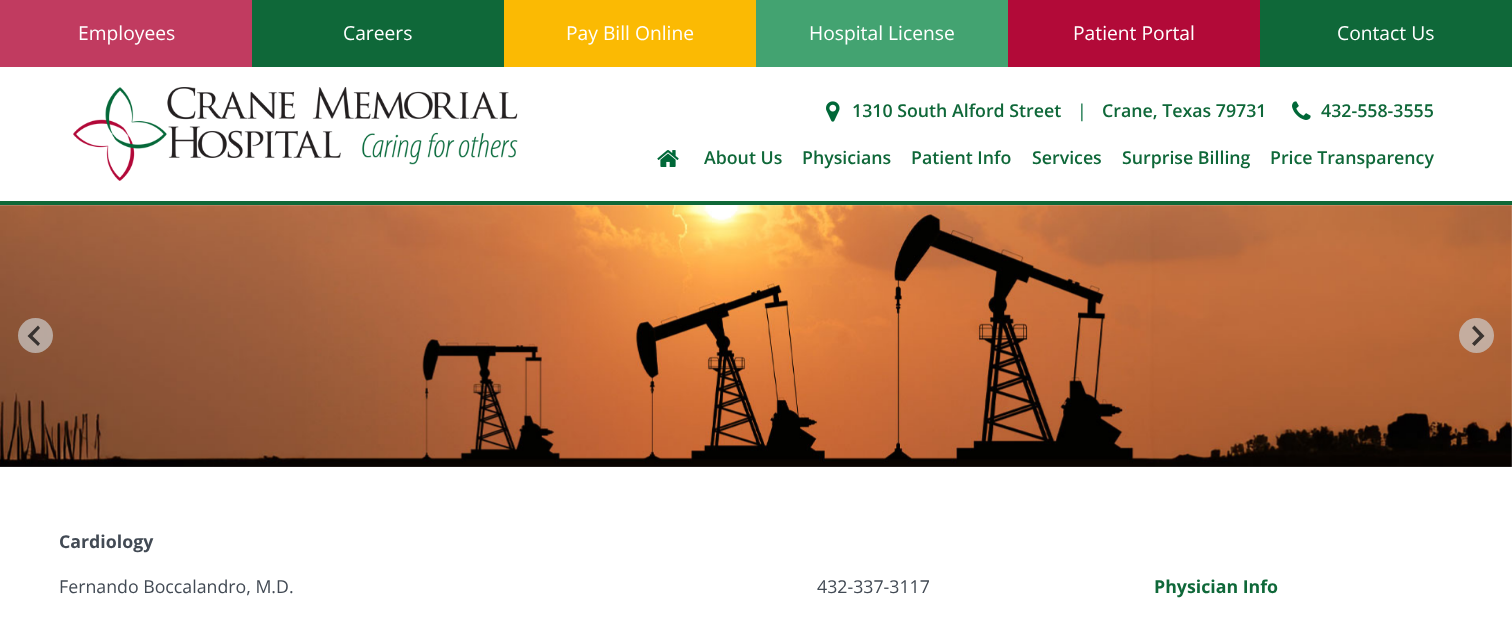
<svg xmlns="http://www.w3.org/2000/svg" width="1512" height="621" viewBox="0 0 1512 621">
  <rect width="100%" height="100%" fill="rgb(255,255,255)"/>
  <rect x="0" y="0" width="252" height="67" fill="rgb(193,59,96)"/>
  <text x="78" y="40" font-family="Open Sans" font-size="19.25" fill="rgb(255,255,255)">Employees</text>
  <rect x="252" y="0" width="252" height="67" fill="rgb(15,104,57)"/>
  <text x="343" y="40" font-family="Open Sans" font-size="19.25" fill="rgb(255,255,255)">Careers</text>
  <rect x="504" y="0" width="252" height="67" fill="rgb(251,186,3)"/>
  <text x="566" y="40" font-family="Open Sans" font-size="19.25" fill="rgb(255,255,255)">Pay Bill Online</text>
  <rect x="756" y="0" width="252" height="67" fill="rgb(67,163,113)"/>
  <text x="809" y="40" font-family="Open Sans" font-size="19.25" fill="rgb(255,255,255)">Hospital License</text>
  <rect x="1008" y="0" width="252" height="67" fill="rgb(178,10,56)"/>
  <text x="1073" y="40" font-family="Open Sans" font-size="19.25" fill="rgb(255,255,255)">Patient Portal</text>
  <rect x="1260" y="0" width="252" height="67" fill="rgb(15,104,57)"/>
  <text x="1337" y="40" font-family="Open Sans" font-size="19.25" fill="rgb(255,255,255)">Contact Us</text>
  <rect x="0" y="201" width="1512" height="4" fill="rgb(15,104,56)"/>
  <image x="73" y="87" width="445" height="94" href="pic1.png"/>
  <image x="826" y="101" width="14" height="21" href="pic2.png"/>
  <text x="852" y="117" font-family="Open Sans" font-size="17.75" font-weight="600" fill="rgb(15,104,57)">1310 South Alford Street</text>
  <text x="1077" y="117" font-family="Open Sans" font-size="17.75" fill="rgb(0,104,56)">|</text>
  <text x="1102" y="117" font-family="Open Sans" font-size="17.75" font-weight="600" fill="rgb(15,104,57)">Crane, Texas 79731</text>
  <image x="1292" y="101" width="19" height="19" href="pic3.png"/>
  <text x="1321" y="117" font-family="Open Sans" font-size="17.75" font-weight="600" fill="rgb(15,104,57)">432-558-3555</text>
  <image x="657" y="150" width="22" height="17" href="pic4.png"/>
  <g font-family="Open Sans" font-size="17.75" font-weight="600" fill="rgb(15,104,57)">
    <text x="704" y="164">About Us</text>
    <text x="802" y="164">Physicians</text>
    <text x="911" y="164">Patient Info</text>
    <text x="1032" y="164">Services</text>
    <text x="1122" y="164">Surprise Billing</text>
    <text x="1270" y="164">Price Transparency</text>
  </g>
  <image x="0" y="205" width="1512" height="262" href="pic5.png"/>
  <circle cx="35.5" cy="335.5" r="17.5" fill="rgba(204,204,204,0.7)"/>
  <path d="M38 325.5L40 328L32.5 336L40 343.5L38 346L27.5 336Z" fill="rgb(55,50,48)"/>
  <circle cx="1476.5" cy="335.5" r="17.5" fill="rgba(204,204,204,0.7)"/>
  <path d="M1474.5 325.5L1472 328L1479.5 336L1472 343.5L1474.5 346L1484.5 336Z" fill="rgb(59,52,48)"/>
  <text x="59" y="548" font-family="Open Sans" font-size="17.75" font-weight="bold" fill="rgb(66,74,84)">Cardiology</text>
  <g font-family="Open Sans" font-size="17.75" fill="rgb(66,74,84)">
    <text x="59" y="593">Fernando Boccalandro, M.D.</text>
    <text x="817" y="593">432-337-3117</text>
  </g>
  <text x="1154" y="593" font-family="Open Sans" font-size="17.75" font-weight="bold" fill="rgb(15,104,57)">Physician Info</text>
</svg>
